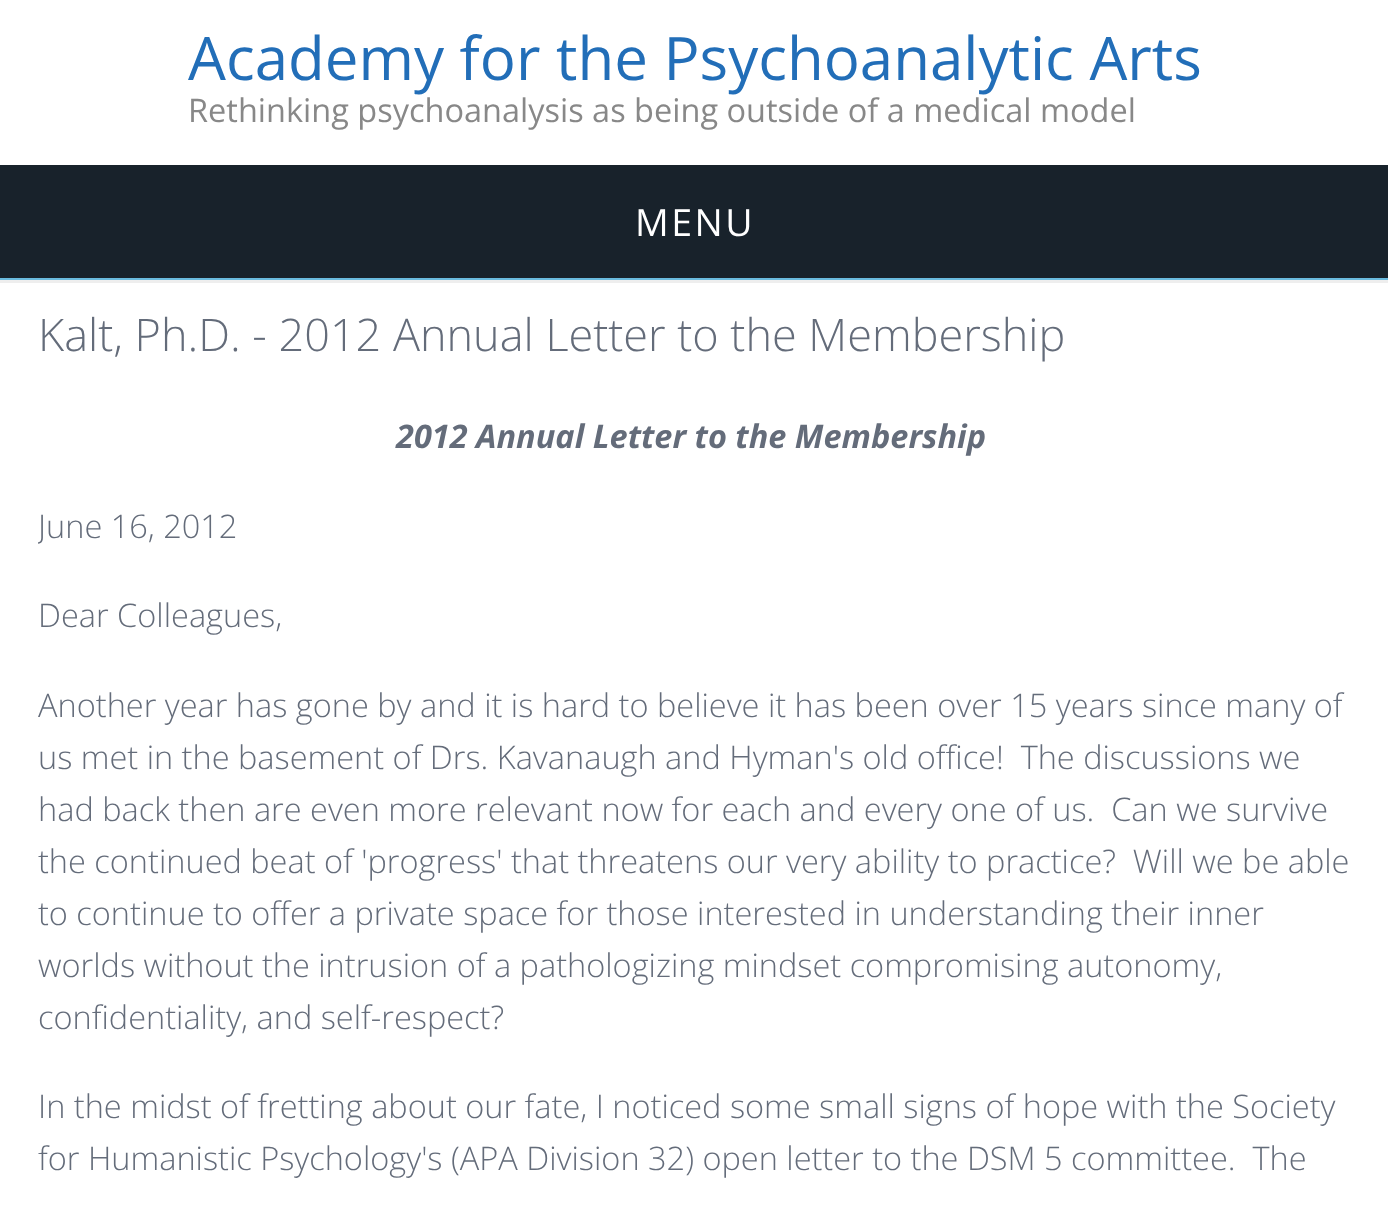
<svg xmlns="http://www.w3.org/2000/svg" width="1388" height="1210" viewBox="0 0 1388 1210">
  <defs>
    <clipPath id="clip1"><rect x="38" y="308" width="1315" height="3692"/></clipPath>
  </defs>
  <rect width="100%" height="100%" fill="rgb(255,255,255)"/>
  <rect x="0" y="280" width="1388" height="3" fill="rgb(238,238,238)"/>
  <text x="188" y="80" font-family="Open Sans" font-size="60" fill="rgb(34,110,184)">Academy for the Psychoanalytic Arts</text>
  <text x="188" y="122" font-family="Open Sans" font-size="32.5" fill="rgb(136,136,136)">Rethinking psychoanalysis as being outside of a medical model</text>
  <rect x="0" y="165" width="1388" height="113" fill="rgb(24,34,43)"/>
  <rect x="0" y="278" width="1388" height="2" fill="rgb(106,187,223)"/>
  <text x="635" y="236" font-family="Open Sans" font-size="37.5" letter-spacing="2.5" fill="rgb(255,255,255)">MENU</text>
  <text x="38" y="351" font-family="Open Sans" font-size="45" font-weight="300" fill="rgb(100,108,122)">Kalt, Ph.D. - 2012 Annual Letter to the Membership</text>
  <text x="396" y="448" font-family="Open Sans" font-size="32.5" font-weight="bold" font-style="italic" fill="rgb(100,108,122)">2012 Annual Letter to the Membership</text>
  <g clip-path="url(#clip1)">
    <text x="38" y="538" font-family="Open Sans" font-size="32.5" font-weight="300" fill="rgb(100,108,122)">June 16, 2012</text>
  </g>
  <g font-family="Open Sans" font-size="32.5" font-weight="300" fill="rgb(100,108,122)">
    <text x="38" y="627">Dear Colleagues,</text>
    <text xml:space="preserve"><tspan x="38" y="717">Another year has gone by and it is hard to believe it has been over 15 years since many of</tspan><tspan x="38" y="769">us met in the basement of Drs. Kavanaugh and Hyman's old office!  The discussions we</tspan><tspan x="38" y="821">had back then are even more relevant now for each and every one of us.  Can we survive</tspan><tspan x="38" y="873">the continued beat of 'progress' that threatens our very ability to practice?  Will we be able</tspan><tspan x="38" y="925">to continue to offer a private space for those interested in understanding their inner</tspan><tspan x="38" y="977">worlds without the intrusion of a pathologizing mindset compromising autonomy,</tspan><tspan x="38" y="1029">confidentiality, and self-respect?</tspan></text>
    <text xml:space="preserve"><tspan x="38" y="1118">In the midst of fretting about our fate, I noticed some small signs of hope with the Society</tspan><tspan x="38" y="1170">for Humanistic Psychology's (APA Division 32) open letter to the DSM 5 committee.  The</tspan></text>
  </g>
</svg>
